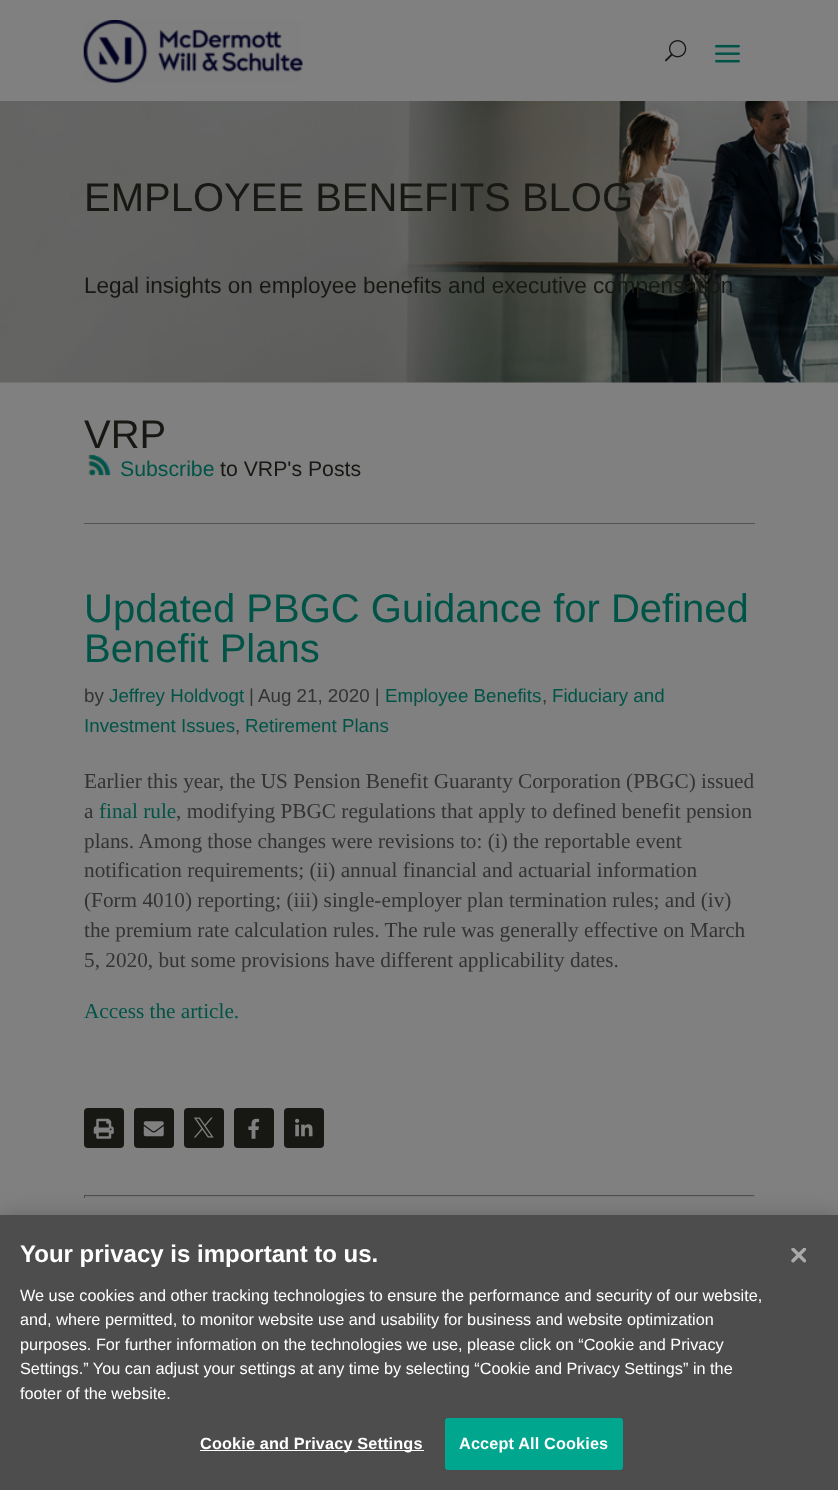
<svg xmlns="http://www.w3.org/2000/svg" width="838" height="1490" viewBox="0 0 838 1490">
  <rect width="100%" height="100%" fill="rgb(128,128,128)"/>
  <image x="83" y="20" width="220" height="63" href="pic1.png"/>
  <image x="665" y="40" width="22" height="22" href="pic2.png"/>
  <image x="715" y="44" width="25" height="19" href="pic3.png"/>
  <image x="0" y="101" width="838" height="282" href="pic4.png"/>
  <text x="84" y="211" font-family="Liberation Sans" font-size="40" fill="rgb(23,24,20)">EMPLOYEE BENEFITS BLOG</text>
  <text x="84" y="293" font-family="Liberation Sans" font-size="22.5" fill="rgb(23,24,20)">Legal insights on employee benefits and executive compensation</text>
  <text x="84" y="448" font-family="Liberation Sans" font-size="40" fill="rgb(23,24,20)">VRP</text>
  <image x="88" y="454" width="23" height="22" href="pic5.png"/>
  <text x="120" y="476" font-family="Liberation Sans" font-size="21.25" fill="rgb(0,83,71)">Subscribe</text>
  <text x="220" y="476" font-family="Liberation Sans" font-size="21.25" fill="rgb(23,24,20)">to VRP's Posts</text>
  <rect x="84" y="523" width="671" height="1" fill="rgb(84,84,84)"/>
  <g font-family="Liberation Sans" font-size="40" fill="rgb(0,83,71)">
    <text>
      <tspan x="84" y="622">Updated PBGC Guidance for Defined</tspan>
      <tspan x="84" y="662">Benefit Plans</tspan>
    </text>
  </g>
  <text x="84" y="702" font-family="Liberation Sans" font-size="18.75" fill="rgb(51,51,51)">by</text>
  <text x="109" y="702" font-family="Liberation Sans" font-size="18.75" fill="rgb(0,83,71)">Jeffrey Holdvogt</text>
  <g font-family="Liberation Sans" font-size="18.75" fill="rgb(51,51,51)">
    <text x="249" y="702">|</text>
    <text x="258" y="702">Aug 21, 2020 |</text>
  </g>
  <text x="385" y="702" font-family="Liberation Sans" font-size="18.75" fill="rgb(0,83,71)">Employee Benefits</text>
  <text x="542" y="702" font-family="Liberation Sans" font-size="18.75" fill="rgb(51,51,51)">,</text>
  <g font-family="Liberation Sans" font-size="18.75" fill="rgb(0,83,71)">
    <text x="552" y="702">Fiduciary and</text>
    <text x="84" y="732">Investment Issues</text>
  </g>
  <text x="235" y="732" font-family="Liberation Sans" font-size="18.75" fill="rgb(51,51,51)">,</text>
  <text x="245" y="732" font-family="Liberation Sans" font-size="18.75" fill="rgb(0,83,71)">Retirement Plans</text>
  <g font-family="Liberation Serif" font-size="21.25" fill="rgb(51,51,51)">
    <text>
      <tspan x="84" y="788">Earlier this year, the US Pension Benefit Guaranty Corporation (PBGC) issued</tspan>
      <tspan x="84" y="818">a</tspan>
    </text>
  </g>
  <text x="99" y="818" font-family="Liberation Serif" font-size="21.25" fill="rgb(0,83,71)">final rule</text>
  <g font-family="Liberation Serif" font-size="21.25" fill="rgb(51,51,51)">
    <text x="176" y="818">, modifying PBGC regulations that apply to defined benefit pension</text>
    <text>
      <tspan x="84" y="848">plans. Among those changes were revisions to: (i) the reportable event</tspan>
      <tspan x="84" y="877">notification requirements; (ii) annual financial and actuarial information</tspan>
      <tspan x="84" y="907">(Form 4010) reporting; (iii) single-employer plan termination rules; and (iv)</tspan>
      <tspan x="84" y="937">the premium rate calculation rules. The rule was generally effective on March</tspan>
      <tspan x="84" y="967">5, 2020, but some provisions have different applicability dates.</tspan>
    </text>
  </g>
  <text x="84" y="1018" font-family="Liberation Serif" font-size="21.25" fill="rgb(0,83,71)">Access the article.</text>
  <rect x="84" y="1108" width="40" height="40" rx="4" fill="rgb(23,24,20)"/>
  <image x="93" y="1118" width="21" height="21" href="pic6.png"/>
  <rect x="134" y="1108" width="40" height="40" rx="4" fill="rgb(23,24,20)"/>
  <image x="143" y="1121" width="21" height="16" href="pic7.png"/>
  <rect x="184" y="1108" width="40" height="40" rx="4" fill="rgb(23,24,20)"/>
  <image x="193" y="1117" width="21" height="21" href="pic8.png"/>
  <rect x="234" y="1108" width="40" height="40" rx="4" fill="rgb(23,24,20)"/>
  <image x="248" y="1118" width="12" height="21" href="pic9.png"/>
  <rect x="284" y="1108" width="40" height="40" rx="4" fill="rgb(23,24,20)"/>
  <image x="295" y="1118" width="18" height="19" href="pic10.png"/>
  <rect x="84" y="1195" width="671" height="1" fill="rgb(80,80,80)"/>
  <rect x="754" y="1195" width="1" height="3" fill="rgb(119,119,119)"/>
  <rect x="84" y="1196" width="671" height="1" fill="rgb(119,119,119)"/>
  <rect x="84" y="1195" width="1" height="3" fill="rgb(80,80,80)"/>
  <rect x="0" y="1215" width="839" height="275" fill="rgba(0,0,0,0.2)" filter="blur(11px)"/>
  <rect x="0" y="1215" width="838" height="275" fill="rgb(77,77,77)"/>
  <text x="20" y="1262" font-family="Liberation Sans" font-size="24" font-weight="bold" fill="rgb(255,255,255)">Your privacy is important to us.</text>
  <g font-family="Liberation Sans" font-size="16.25" fill="rgb(255,255,255)">
    <text>
      <tspan x="20" y="1301">We use cookies and other tracking technologies to ensure the performance and security of our website,</tspan>
      <tspan x="20" y="1325">and, where permitted, to monitor website use and usability for business and website optimization</tspan>
      <tspan x="20" y="1350">purposes. For further information on the technologies we use, please click on “Cookie and Privacy</tspan>
      <tspan x="20" y="1374">Settings.” You can adjust your settings at any time by selecting “Cookie and Privacy Settings” in the</tspan>
      <tspan x="20" y="1399">footer of the website.</tspan>
    </text>
  </g>
  <rect x="200" y="1450" width="224" height="1" fill="rgb(255,255,255)"/>
  <text x="200" y="1449" font-family="Liberation Sans" font-size="16.25" font-weight="bold" letter-spacing="0.15" fill="rgb(255,255,255)">Cookie and Privacy Settings</text>
  <rect x="445.5" y="1418.5" width="177" height="51" rx="2" fill="rgb(0,166,142)" stroke="rgb(0,166,142)"/>
  <text x="459" y="1449" font-family="Liberation Sans" font-size="16.25" font-weight="bold" letter-spacing="0.15" fill="rgb(255,255,255)">Accept All Cookies</text>
  <image x="791" y="1248" width="15" height="15" href="pic11.png"/>
</svg>
